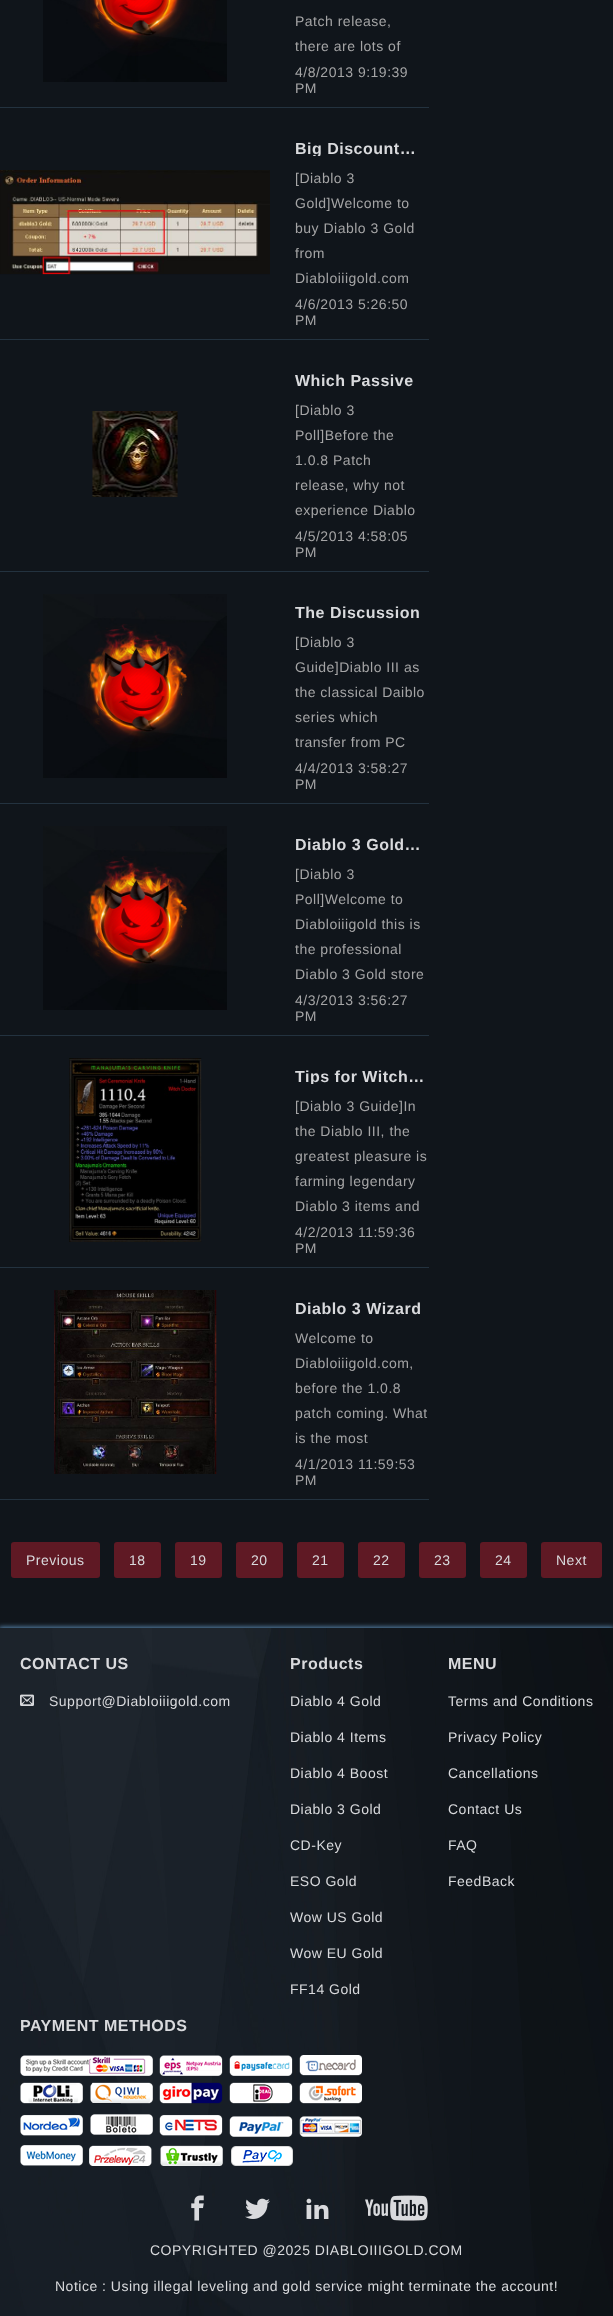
<svg xmlns="http://www.w3.org/2000/svg" width="613" height="2316" viewBox="0 0 613 2316">
  <defs>
    <clipPath id="clip1"><rect x="295" y="130" width="134" height="26"/></clipPath>
    <clipPath id="clip2"><rect x="295" y="1058" width="134" height="26"/></clipPath>
  </defs>
  <rect width="100%" height="100%" fill="rgb(16,21,27)"/>
  <rect x="0" y="107" width="429" height="1" fill="rgb(35,50,63)"/>
  <image x="43" y="0" width="184" height="82" href="pic1.png"/>
  <g font-family="Liberation Sans" font-size="14" letter-spacing="0.5" fill="rgb(165,165,166)">
    <text>
      <tspan x="295" y="26">Patch release,</tspan>
      <tspan x="295" y="51">there are lots of</tspan>
      <tspan x="295" y="77">4/8/2013 9:19:39</tspan>
      <tspan x="295" y="93">PM</tspan>
    </text>
  </g>
  <rect x="0" y="339" width="429" height="1" fill="rgb(35,50,63)"/>
  <image x="0" y="170" width="270" height="105" href="pic2.png"/>
  <g clip-path="url(#clip1)">
    <text x="295" y="154" font-family="Liberation Sans" font-size="16" font-weight="bold" letter-spacing="0.5" fill="rgb(217,218,221)">Big Discount…</text>
  </g>
  <g font-family="Liberation Sans" font-size="14" letter-spacing="0.5" fill="rgb(165,165,166)">
    <text>
      <tspan x="295" y="183">[Diablo 3</tspan>
      <tspan x="295" y="208">Gold]Welcome to</tspan>
      <tspan x="295" y="233">buy Diablo 3 Gold</tspan>
      <tspan x="295" y="258">from</tspan>
      <tspan x="295" y="283">Diabloiiigold.com</tspan>
      <tspan x="295" y="309">4/6/2013 5:26:50</tspan>
      <tspan x="295" y="325">PM</tspan>
    </text>
  </g>
  <rect x="0" y="571" width="429" height="1" fill="rgb(35,50,63)"/>
  <image x="92" y="411" width="86" height="86" href="pic3.png"/>
  <text x="295" y="386" font-family="Liberation Sans" font-size="16" font-weight="bold" letter-spacing="0.5" fill="rgb(217,218,221)">Which Passive</text>
  <g font-family="Liberation Sans" font-size="14" letter-spacing="0.5" fill="rgb(165,165,166)">
    <text>
      <tspan x="295" y="415">[Diablo 3</tspan>
      <tspan x="295" y="440">Poll]Before the</tspan>
      <tspan x="295" y="465">1.0.8 Patch</tspan>
      <tspan x="295" y="490">release, why not</tspan>
      <tspan x="295" y="515">experience Diablo</tspan>
      <tspan x="295" y="541">4/5/2013 4:58:05</tspan>
      <tspan x="295" y="557">PM</tspan>
    </text>
  </g>
  <rect x="0" y="803" width="429" height="1" fill="rgb(35,50,63)"/>
  <image x="43" y="594" width="184" height="184" href="pic4.png"/>
  <text x="295" y="618" font-family="Liberation Sans" font-size="16" font-weight="bold" letter-spacing="0.5" fill="rgb(217,218,221)">The Discussion</text>
  <g font-family="Liberation Sans" font-size="14" letter-spacing="0.5" fill="rgb(165,165,166)">
    <text>
      <tspan x="295" y="647">[Diablo 3</tspan>
      <tspan x="295" y="672">Guide]Diablo III as</tspan>
      <tspan x="295" y="697">the classical Daiblo</tspan>
      <tspan x="295" y="722">series which</tspan>
      <tspan x="295" y="747">transfer from PC</tspan>
      <tspan x="295" y="773">4/4/2013 3:58:27</tspan>
      <tspan x="295" y="789">PM</tspan>
    </text>
  </g>
  <rect x="0" y="1035" width="429" height="1" fill="rgb(35,50,63)"/>
  <image x="43" y="826" width="184" height="184" href="pic4.png"/>
  <text x="295" y="850" font-family="Liberation Sans" font-size="16" font-weight="bold" letter-spacing="0.5" fill="rgb(217,218,221)">Diablo 3 Gold…</text>
  <g font-family="Liberation Sans" font-size="14" letter-spacing="0.5" fill="rgb(165,165,166)">
    <text>
      <tspan x="295" y="879">[Diablo 3</tspan>
      <tspan x="295" y="904">Poll]Welcome to</tspan>
      <tspan x="295" y="929">Diabloiiigold this is</tspan>
      <tspan x="295" y="954">the professional</tspan>
      <tspan x="295" y="979">Diablo 3 Gold store</tspan>
      <tspan x="295" y="1005">4/3/2013 3:56:27</tspan>
      <tspan x="295" y="1021">PM</tspan>
    </text>
  </g>
  <rect x="0" y="1267" width="429" height="1" fill="rgb(35,50,63)"/>
  <image x="69" y="1058" width="133" height="184" href="pic5.png"/>
  <g clip-path="url(#clip2)">
    <text x="295" y="1082" font-family="Liberation Sans" font-size="16" font-weight="bold" letter-spacing="0.5" fill="rgb(217,218,221)">Tips for Witch…</text>
  </g>
  <g font-family="Liberation Sans" font-size="14" letter-spacing="0.5" fill="rgb(165,165,166)">
    <text>
      <tspan x="295" y="1111">[Diablo 3 Guide]In</tspan>
      <tspan x="295" y="1136">the Diablo III, the</tspan>
      <tspan x="295" y="1161">greatest pleasure is</tspan>
      <tspan x="295" y="1186">farming legendary</tspan>
      <tspan x="295" y="1211">Diablo 3 items and</tspan>
      <tspan x="295" y="1237">4/2/2013 11:59:36</tspan>
      <tspan x="295" y="1253">PM</tspan>
    </text>
  </g>
  <rect x="0" y="1499" width="429" height="1" fill="rgb(35,50,63)"/>
  <image x="54" y="1290" width="163" height="184" href="pic6.png"/>
  <text x="295" y="1314" font-family="Liberation Sans" font-size="16" font-weight="bold" letter-spacing="0.5" fill="rgb(217,218,221)">Diablo 3 Wizard</text>
  <g font-family="Liberation Sans" font-size="14" letter-spacing="0.5" fill="rgb(165,165,166)">
    <text>
      <tspan x="295" y="1343">Welcome to</tspan>
      <tspan x="295" y="1368">Diabloiiigold.com,</tspan>
      <tspan x="295" y="1393">before the 1.0.8</tspan>
      <tspan x="295" y="1418">patch coming. What</tspan>
      <tspan x="295" y="1443">is the most</tspan>
      <tspan x="295" y="1469">4/1/2013 11:59:53</tspan>
      <tspan x="295" y="1485">PM</tspan>
    </text>
  </g>
  <rect x="11" y="1542" width="89" height="36" rx="3" fill="rgb(95,25,36)"/>
  <text x="26" y="1565" font-family="Liberation Sans" font-size="14" letter-spacing="0.5" fill="rgb(217,218,221)">Previous</text>
  <rect x="114" y="1542" width="47" height="36" rx="3" fill="rgb(95,25,36)"/>
  <text x="129" y="1565" font-family="Liberation Sans" font-size="14" letter-spacing="0.5" fill="rgb(217,218,221)">18</text>
  <rect x="175" y="1542" width="47" height="36" rx="3" fill="rgb(95,25,36)"/>
  <text x="190" y="1565" font-family="Liberation Sans" font-size="14" letter-spacing="0.5" fill="rgb(217,218,221)">19</text>
  <rect x="236" y="1542" width="47" height="36" rx="3" fill="rgb(95,25,36)"/>
  <text x="251" y="1565" font-family="Liberation Sans" font-size="14" letter-spacing="0.5" fill="rgb(217,218,221)">20</text>
  <rect x="297" y="1542" width="47" height="36" rx="3" fill="rgb(95,25,36)"/>
  <text x="312" y="1565" font-family="Liberation Sans" font-size="14" letter-spacing="0.5" fill="rgb(217,218,221)">21</text>
  <rect x="358" y="1542" width="47" height="36" rx="3" fill="rgb(95,25,36)"/>
  <text x="373" y="1565" font-family="Liberation Sans" font-size="14" letter-spacing="0.5" fill="rgb(217,218,221)">22</text>
  <rect x="419" y="1542" width="47" height="36" rx="3" fill="rgb(95,25,36)"/>
  <text x="434" y="1565" font-family="Liberation Sans" font-size="14" letter-spacing="0.5" fill="rgb(217,218,221)">23</text>
  <rect x="480" y="1542" width="47" height="36" rx="3" fill="rgb(95,25,36)"/>
  <text x="495" y="1565" font-family="Liberation Sans" font-size="14" letter-spacing="0.5" fill="rgb(217,218,221)">24</text>
  <rect x="541" y="1542" width="61" height="36" rx="3" fill="rgb(95,25,36)"/>
  <text x="556" y="1565" font-family="Liberation Sans" font-size="14" letter-spacing="0.5" fill="rgb(217,218,221)">Next</text>
  <rect x="-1" y="1627" width="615" height="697" fill="rgb(91,137,177)" filter="blur(2.5px)"/>
  <image x="0" y="1628" width="613" height="688" href="pic7.png"/>
  <text x="20" y="1669" font-family="Liberation Sans" font-size="16" font-weight="bold" letter-spacing="0.5" fill="rgb(217,218,221)">CONTACT US</text>
  <image x="20" y="1694" width="14" height="12" href="pic8.png"/>
  <text x="49" y="1706" font-family="Liberation Sans" font-size="14" letter-spacing="0.5" fill="rgb(217,218,221)">Support@Diabloiiigold.com</text>
  <text x="290" y="1669" font-family="Liberation Sans" font-size="16" font-weight="bold" letter-spacing="0.5" fill="rgb(217,218,221)">Products</text>
  <g font-family="Liberation Sans" font-size="14" letter-spacing="0.5" fill="rgb(217,218,221)">
    <text x="290" y="1706">Diablo 4 Gold</text>
    <text x="290" y="1742">Diablo 4 Items</text>
    <text x="290" y="1778">Diablo 4 Boost</text>
    <text x="290" y="1814">Diablo 3 Gold</text>
    <text x="290" y="1850">CD-Key</text>
    <text x="290" y="1886">ESO Gold</text>
    <text x="290" y="1922">Wow US Gold</text>
    <text x="290" y="1958">Wow EU Gold</text>
    <text x="290" y="1994">FF14 Gold</text>
  </g>
  <text x="448" y="1669" font-family="Liberation Sans" font-size="16" font-weight="bold" letter-spacing="0.5" fill="rgb(217,218,221)">MENU</text>
  <g font-family="Liberation Sans" font-size="14" letter-spacing="0.5" fill="rgb(217,218,221)">
    <text x="448" y="1706">Terms and Conditions</text>
    <text x="448" y="1742">Privacy Policy</text>
    <text x="448" y="1778">Cancellations</text>
    <text x="448" y="1814">Contact Us</text>
    <text x="448" y="1850">FAQ</text>
    <text x="448" y="1886">FeedBack</text>
  </g>
  <text x="20" y="2031" font-family="Liberation Sans" font-size="16" font-weight="bold" letter-spacing="0.5" fill="rgb(217,218,221)">PAYMENT METHODS</text>
  <image x="20" y="2055" width="342" height="111" href="pic9.png"/>
  <image x="191" y="2195" width="13" height="26" href="pic10.png"/>
  <image x="245" y="2198" width="25" height="21" href="pic11.png"/>
  <image x="306" y="2198" width="23" height="21" href="pic12.png"/>
  <image x="365" y="2195" width="63" height="26" href="pic13.png"/>
  <g font-family="Liberation Sans" font-size="14" letter-spacing="0.5" fill="rgb(217,218,221)">
    <text x="150" y="2255">COPYRIGHTED @2025 DIABLOIIIGOLD.COM</text>
    <text x="55" y="2291">Notice : Using illegal leveling and gold service might terminate the account!</text>
  </g>
</svg>
